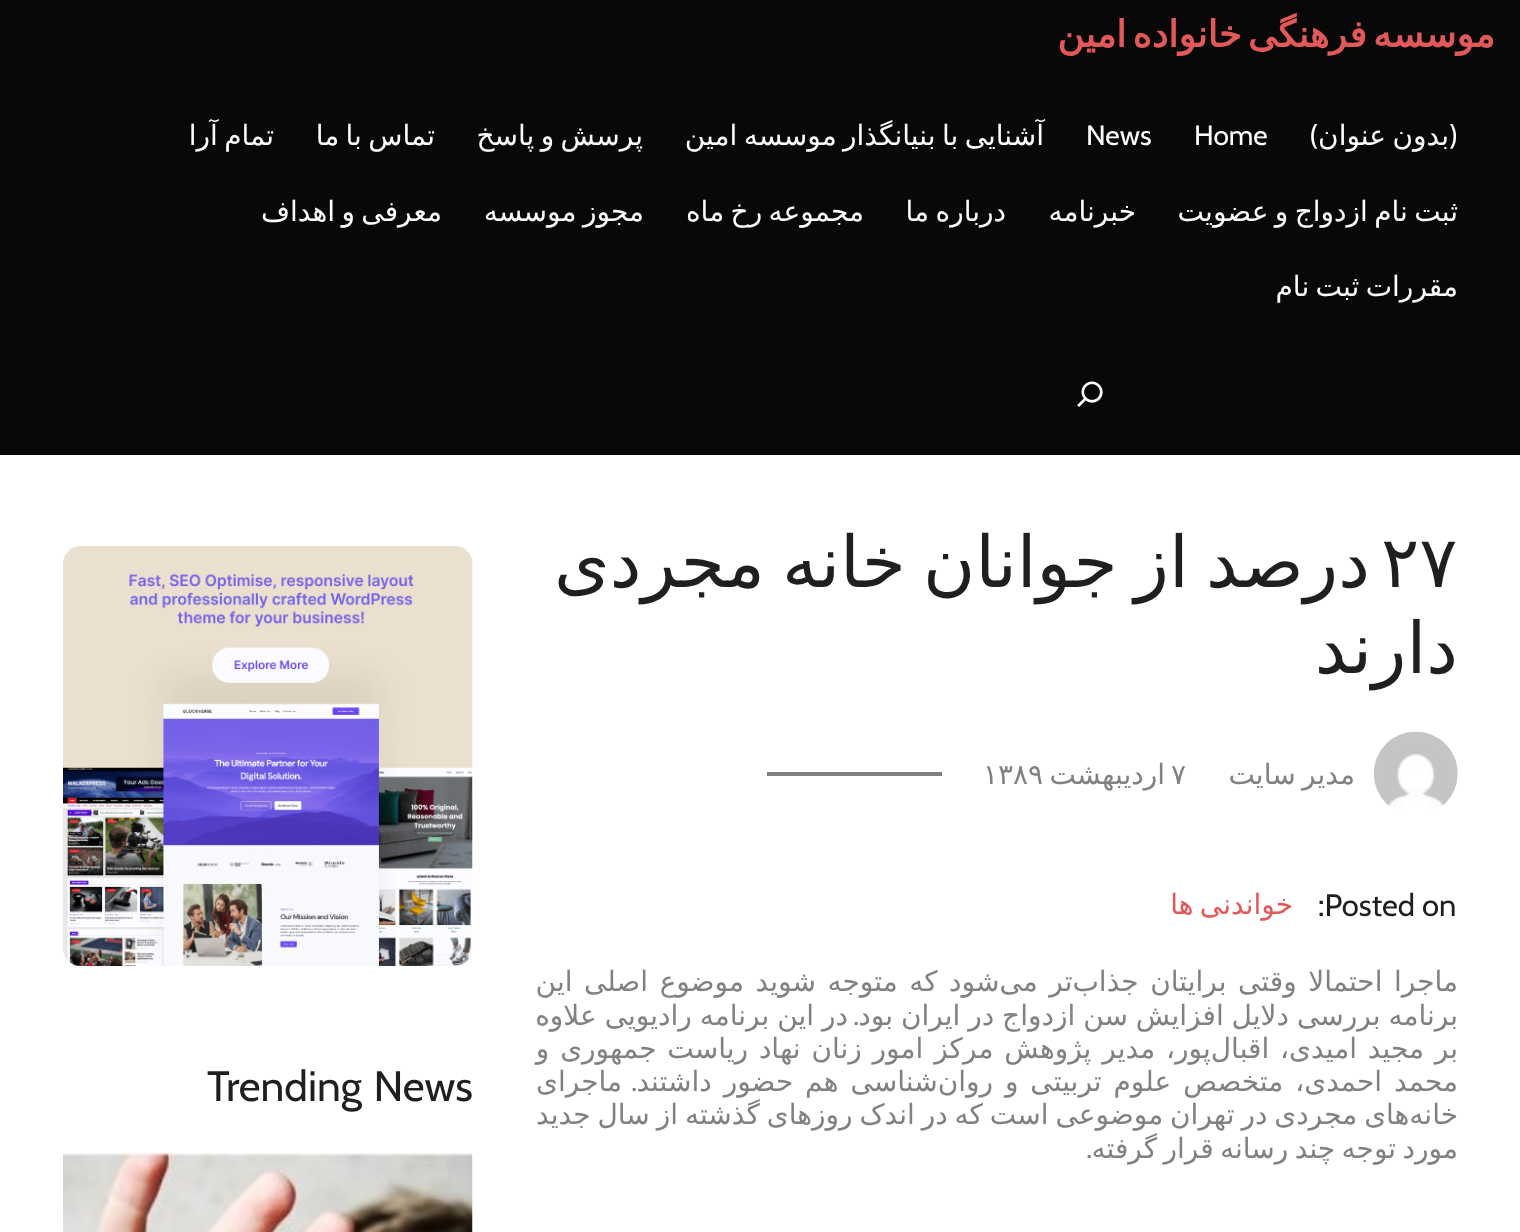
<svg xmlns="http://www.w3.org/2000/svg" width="1520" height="1232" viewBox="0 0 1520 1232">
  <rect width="100%" height="100%" fill="rgb(255,255,255)"/>
  <rect x="0" y="0" width="1520" height="455" fill="rgb(8,8,8)"/>
  <text x="1495" y="47" word-spacing="-5.5" font-family="DejaVu Sans" font-size="36.75" font-weight="bold" letter-spacing="1.75" direction="rtl" fill="rgb(227,88,88)">موسسه فرهنگی خانواده امین</text>
  <text x="1458" y="145" font-family="Cabin" font-size="28" direction="rtl" fill="rgb(254,254,254)">(</text>
  <text x="1449" y="145" word-spacing="-2.5" font-family="DejaVu Sans" font-size="28" direction="rtl" fill="rgb(254,254,254)">بدون عنوان</text>
  <text x="1318" y="145" font-family="Cabin" font-size="28" direction="rtl" fill="rgb(254,254,254)">)</text>
  <g font-family="Cabin" font-size="28" fill="rgb(254,254,254)">
    <text x="1194" y="145">Home</text>
    <text x="1086" y="145">News</text>
  </g>
  <g font-family="DejaVu Sans" font-size="28" direction="rtl" fill="rgb(254,254,254)">
    <text x="1044" y="145" word-spacing="-2.5">آشنایی با بنیانگذار موسسه امین</text>
    <text x="643" y="145" word-spacing="-2.5">پرسش و پاسخ</text>
    <text x="435" y="145" word-spacing="-2.5">تماس با ما</text>
    <text x="274" y="145" word-spacing="-2.5">تمام آرا</text>
    <text x="1458" y="221" word-spacing="-2.5">ثبت نام ازدواج و عضویت</text>
    <text x="1136" y="221">خبرنامه</text>
    <text x="1006" y="221" word-spacing="-2.5">درباره ما</text>
    <text x="864" y="221" word-spacing="-2.5">مجموعه رخ ماه</text>
    <text x="644" y="221" word-spacing="-2.5">مجوز موسسه</text>
    <text x="442" y="221" word-spacing="-2.5">معرفی و اهداف</text>
    <text x="1458" y="296" word-spacing="-2.5">مقررات ثبت نام</text>
  </g>
  <image x="1077" y="381" width="26" height="26" href="pic1.png"/>
  <text x="1370" y="587" word-spacing="-5.5" font-family="DejaVu Sans" font-size="71.25" direction="rtl" fill="rgb(31,31,31)">درصد از جوانان خانه مجردی</text>
  <text x="1381" y="587" font-family="DejaVu Sans" font-size="71.25" fill="rgb(31,31,31)">۲۷</text>
  <text x="1458" y="673" font-family="DejaVu Sans" font-size="71.25" direction="rtl" fill="rgb(31,31,31)">دارند</text>
  <image x="1373" y="731" width="85" height="79" href="pic2.png"/>
  <text x="1355" y="784" word-spacing="-2.5" font-family="DejaVu Sans" font-size="28" direction="rtl" fill="rgb(129,129,129)">مدیر سایت</text>
  <text x="1171" y="784" font-family="DejaVu Sans" font-size="28" fill="rgb(129,129,129)">۷</text>
  <text x="1165" y="784" font-family="DejaVu Sans" font-size="28" direction="rtl" fill="rgb(129,129,129)">اردیبهشت</text>
  <text x="983" y="784" font-family="DejaVu Sans" font-size="28" fill="rgb(129,129,129)">۱۳۸۹</text>
  <rect x="767" y="772" width="175" height="4" fill="rgb(128,128,128)"/>
  <text x="1318" y="916" font-family="Cabin" font-size="31" fill="rgb(31,31,31)">:Posted on</text>
  <text x="1293" y="914" word-spacing="-2.5" font-family="DejaVu Sans" font-size="28" direction="rtl" fill="rgb(227,88,88)">خواندنی ها</text>
  <g font-family="DejaVu Sans" font-size="28" direction="rtl" fill="rgb(129,129,129)">
    <text>
      <tspan x="1458" y="991" word-spacing="2.6">ماجرا احتمالا وقتی برایتان جذاب‌تر می‌شود که متوجه شوید موضوع اصلی این</tspan>
      <tspan x="1458" y="1025" word-spacing="-1">برنامه بررسی دلایل افزایش سن ازدواج در ایران بود</tspan>
    </text>
  </g>
  <text x="859" y="1025" font-family="Cabin" font-size="28" direction="rtl" fill="rgb(129,129,129)">.</text>
  <g font-family="DejaVu Sans" font-size="28" direction="rtl" fill="rgb(129,129,129)">
    <text x="848" y="1025" word-spacing="-1">در این برنامه رادیویی علاوه</text>
    <text>
      <tspan x="1458" y="1058" word-spacing="1.9">بر مجید امیدی، اقبال‌پور، مدیر پژوهش مرکز امور زنان نهاد ریاست جمهوری و</tspan>
      <tspan x="1458" y="1091" word-spacing="3">محمد احمدی، متخصص علوم تربیتی و روان‌شناسی هم حضور داشتند</tspan>
    </text>
  </g>
  <text x="637" y="1091" font-family="Cabin" font-size="28" direction="rtl" fill="rgb(129,129,129)">.</text>
  <g font-family="DejaVu Sans" font-size="28" direction="rtl" fill="rgb(129,129,129)">
    <text x="622" y="1091">ماجرای</text>
    <text>
      <tspan x="1458" y="1124" word-spacing="-2">خانه‌های مجردی در تهران موضوعی است که در اندک روزهای گذشته از سال جدید</tspan>
      <tspan x="1458" y="1158" word-spacing="-2.5">مورد توجه چند رسانه قرار گرفته</tspan>
    </text>
  </g>
  <text x="1092" y="1158" font-family="Cabin" font-size="28" direction="rtl" fill="rgb(129,129,129)">.</text>
  <image x="63" y="546" width="410" height="420" href="pic3.png"/>
  <text x="207" y="1101" word-spacing="2" font-family="Cabin" font-size="42.5" fill="rgb(31,31,31)">Trending News</text>
  <image x="63" y="1153" width="410" height="79" href="pic4.png"/>
</svg>
